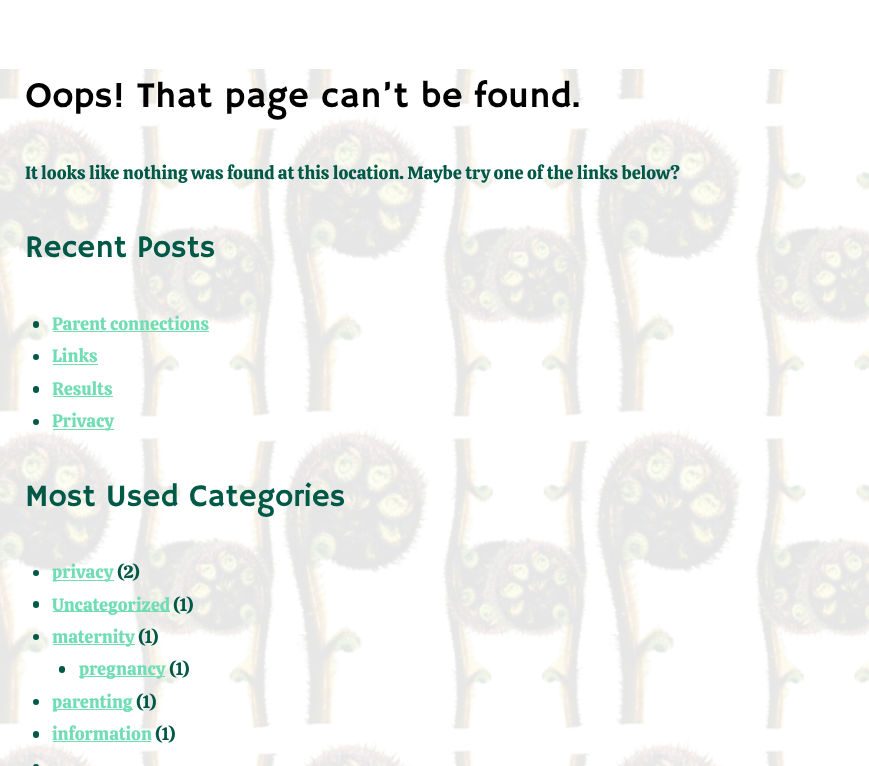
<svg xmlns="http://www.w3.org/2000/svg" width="869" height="766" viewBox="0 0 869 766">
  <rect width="100%" height="100%" fill="rgb(255,255,255)"/>
  <image x="0" y="69" width="869" height="697" href="pic1.png"/>
  <text x="25" y="107" font-family="Hammersmith One" font-size="36.25" fill="rgb(0,0,0)">Oops! That page can’t be found.</text>
  <text x="25" y="179" font-family="Calistoga" font-size="18" fill="rgb(0,89,71)">It looks like nothing was found at this location. Maybe try one of the links below?</text>
  <text x="25" y="257" font-family="Hammersmith One" font-size="31.25" fill="rgb(0,89,71)">Recent Posts</text>
  <rect x="33" y="321" width="6" height="7" rx="3" fill="rgb(0,89,71)"/>
  <text x="52" y="330" font-family="Calistoga" font-size="18" fill="rgb(113,221,181)">Parent connections</text>
  <rect x="53" y="331" width="156" height="1" fill="rgb(113,221,181)"/>
  <circle cx="36" cy="357" r="3" fill="rgb(0,89,71)"/>
  <text x="52" y="362" font-family="Calistoga" font-size="18" fill="rgb(113,221,181)">Links</text>
  <rect x="53" y="364" width="45" height="1" fill="rgb(113,221,181)"/>
  <rect x="33" y="386" width="6" height="7" rx="3" fill="rgb(0,89,71)"/>
  <text x="52" y="395" font-family="Calistoga" font-size="18" fill="rgb(113,221,181)">Results</text>
  <rect x="53" y="396" width="60" height="1" fill="rgb(113,221,181)"/>
  <circle cx="36" cy="422" r="3" fill="rgb(0,89,71)"/>
  <rect x="53" y="429" width="61" height="1" fill="rgb(113,221,181)"/>
  <text x="52" y="427" font-family="Calistoga" font-size="18" fill="rgb(113,221,181)">Privacy</text>
  <text x="25" y="506" font-family="Hammersmith One" font-size="31.25" fill="rgb(0,89,71)">Most Used Categories</text>
  <circle cx="36" cy="573" r="3" fill="rgb(0,89,71)"/>
  <rect x="53" y="580" width="61" height="1" fill="rgb(113,221,181)"/>
  <text x="52" y="578" font-family="Calistoga" font-size="18" fill="rgb(113,221,181)">privacy</text>
  <text x="117" y="578" font-family="Calistoga" font-size="18" fill="rgb(0,89,71)">(2)</text>
  <rect x="33" y="601" width="6" height="7" rx="3" fill="rgb(0,89,71)"/>
  <rect x="53" y="611" width="117" height="1" fill="rgb(113,221,181)"/>
  <text x="52" y="611" font-family="Calistoga" font-size="18" fill="rgb(113,221,181)">Uncategorized</text>
  <text x="173" y="611" font-family="Calistoga" font-size="18" fill="rgb(0,89,71)">(1)</text>
  <circle cx="36" cy="637" r="3" fill="rgb(0,89,71)"/>
  <rect x="53" y="644" width="82" height="1" fill="rgb(113,221,181)"/>
  <text x="52" y="643" font-family="Calistoga" font-size="18" fill="rgb(113,221,181)">maternity</text>
  <text x="138" y="643" font-family="Calistoga" font-size="18" fill="rgb(0,89,71)">(1)</text>
  <rect x="59" y="666" width="6" height="7" rx="3" fill="rgb(0,89,71)"/>
  <rect x="79" y="676" width="86" height="1" fill="rgb(113,221,181)"/>
  <text x="79" y="675" font-family="Calistoga" font-size="18" fill="rgb(113,221,181)">pregnancy</text>
  <text x="169" y="675" font-family="Calistoga" font-size="18" fill="rgb(0,89,71)">(1)</text>
  <circle cx="36" cy="702" r="3" fill="rgb(0,89,71)"/>
  <rect x="53" y="709" width="80" height="1" fill="rgb(113,221,181)"/>
  <text x="52" y="708" font-family="Calistoga" font-size="18" fill="rgb(113,221,181)">parenting</text>
  <text x="136" y="708" font-family="Calistoga" font-size="18" fill="rgb(0,89,71)">(1)</text>
  <rect x="33" y="731" width="6" height="7" rx="3" fill="rgb(0,89,71)"/>
  <text x="52" y="740" font-family="Calistoga" font-size="18" fill="rgb(113,221,181)">information</text>
  <rect x="53" y="741" width="98" height="1" fill="rgb(113,221,181)"/>
  <text x="155" y="740" font-family="Calistoga" font-size="18" fill="rgb(0,89,71)">(1)</text>
  <rect x="33" y="764" width="6" height="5" rx="3" fill="rgb(0,89,71)"/>
</svg>
